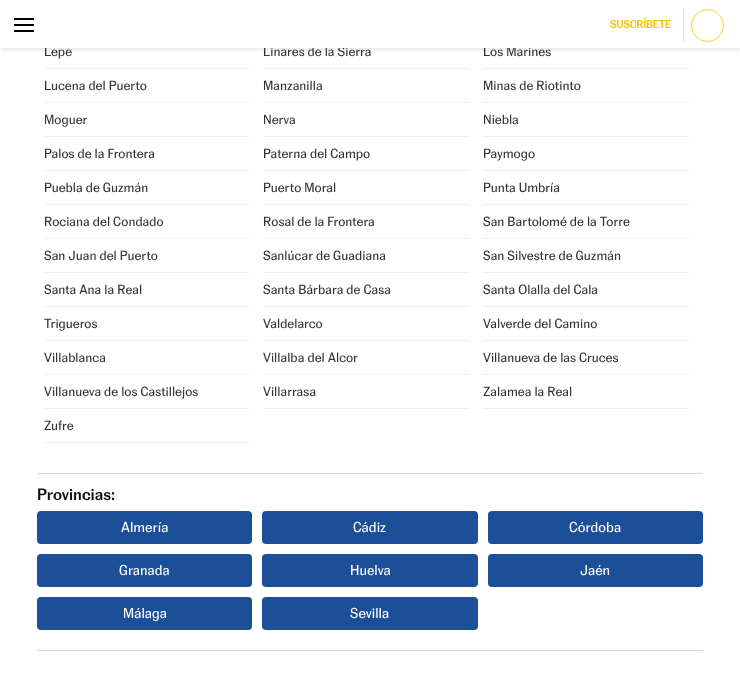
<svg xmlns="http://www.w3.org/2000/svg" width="740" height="673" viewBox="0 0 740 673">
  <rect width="100%" height="100%" fill="rgb(255,255,255)"/>
  <rect x="0" y="2" width="740" height="48" fill="rgba(0,0,0,0.1)" filter="blur(2px)"/>
  <g font-family="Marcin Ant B" font-size="13" fill="rgb(51,51,51)">
    <text x="44" y="56">Lepe</text>
    <text x="263" y="56">Linares de la Sierra</text>
    <text x="483" y="56">Los Marines</text>
  </g>
  <rect x="0" y="0" width="740" height="48" fill="rgb(255,255,255)"/>
  <rect x="14" y="18" width="20" height="2" fill="rgb(0,0,0)"/>
  <rect x="14" y="24" width="20" height="2" fill="rgb(0,0,0)"/>
  <rect x="14" y="30" width="20" height="2" fill="rgb(0,0,0)"/>
  <rect x="683" y="9" width="1" height="33" fill="rgb(226,226,226)"/>
  <text x="610" y="28" font-family="Marcin Ant B" font-size="11" font-weight="500" letter-spacing="-0.25" fill="rgb(253,192,2)">SUSCRÍBETE</text>
  <circle cx="707.5" cy="25.5" r="16" fill="none" stroke="rgb(245,208,58)"/>
  <rect x="44" y="68" width="206" height="1" fill="rgb(239,241,245)"/>
  <rect x="263" y="68" width="207" height="1" fill="rgb(239,241,245)"/>
  <rect x="483" y="68" width="207" height="1" fill="rgb(239,241,245)"/>
  <rect x="44" y="102" width="206" height="1" fill="rgb(239,241,245)"/>
  <text x="44" y="90" font-family="Marcin Ant B" font-size="13" fill="rgb(51,51,51)">Lucena del Puerto</text>
  <rect x="263" y="102" width="207" height="1" fill="rgb(239,241,245)"/>
  <text x="263" y="90" font-family="Marcin Ant B" font-size="13" fill="rgb(51,51,51)">Manzanilla</text>
  <rect x="483" y="102" width="207" height="1" fill="rgb(239,241,245)"/>
  <text x="483" y="90" font-family="Marcin Ant B" font-size="13" fill="rgb(51,51,51)">Minas de Riotinto</text>
  <rect x="44" y="136" width="206" height="1" fill="rgb(239,241,245)"/>
  <text x="44" y="124" font-family="Marcin Ant B" font-size="13" fill="rgb(51,51,51)">Moguer</text>
  <rect x="263" y="136" width="207" height="1" fill="rgb(239,241,245)"/>
  <text x="263" y="124" font-family="Marcin Ant B" font-size="13" fill="rgb(51,51,51)">Nerva</text>
  <rect x="483" y="136" width="207" height="1" fill="rgb(239,241,245)"/>
  <text x="483" y="124" font-family="Marcin Ant B" font-size="13" fill="rgb(51,51,51)">Niebla</text>
  <rect x="44" y="170" width="206" height="1" fill="rgb(239,241,245)"/>
  <text x="44" y="158" font-family="Marcin Ant B" font-size="13" fill="rgb(51,51,51)">Palos de la Frontera</text>
  <rect x="263" y="170" width="207" height="1" fill="rgb(239,241,245)"/>
  <text x="263" y="158" font-family="Marcin Ant B" font-size="13" fill="rgb(51,51,51)">Paterna del Campo</text>
  <rect x="483" y="170" width="207" height="1" fill="rgb(239,241,245)"/>
  <text x="483" y="158" font-family="Marcin Ant B" font-size="13" fill="rgb(51,51,51)">Paymogo</text>
  <rect x="44" y="204" width="206" height="1" fill="rgb(239,241,245)"/>
  <text x="44" y="192" font-family="Marcin Ant B" font-size="13" fill="rgb(51,51,51)">Puebla de Guzmán</text>
  <rect x="263" y="204" width="207" height="1" fill="rgb(239,241,245)"/>
  <text x="263" y="192" font-family="Marcin Ant B" font-size="13" fill="rgb(51,51,51)">Puerto Moral</text>
  <rect x="483" y="204" width="207" height="1" fill="rgb(239,241,245)"/>
  <text x="483" y="192" font-family="Marcin Ant B" font-size="13" fill="rgb(51,51,51)">Punta Umbría</text>
  <rect x="44" y="238" width="206" height="1" fill="rgb(239,241,245)"/>
  <text x="44" y="226" font-family="Marcin Ant B" font-size="13" fill="rgb(51,51,51)">Rociana del Condado</text>
  <rect x="263" y="238" width="207" height="1" fill="rgb(239,241,245)"/>
  <text x="263" y="226" font-family="Marcin Ant B" font-size="13" fill="rgb(51,51,51)">Rosal de la Frontera</text>
  <rect x="483" y="238" width="207" height="1" fill="rgb(239,241,245)"/>
  <text x="483" y="226" font-family="Marcin Ant B" font-size="13" fill="rgb(51,51,51)">San Bartolomé de la Torre</text>
  <rect x="44" y="272" width="206" height="1" fill="rgb(239,241,245)"/>
  <text x="44" y="260" font-family="Marcin Ant B" font-size="13" fill="rgb(51,51,51)">San Juan del Puerto</text>
  <rect x="263" y="272" width="207" height="1" fill="rgb(239,241,245)"/>
  <text x="263" y="260" font-family="Marcin Ant B" font-size="13" fill="rgb(51,51,51)">Sanlúcar de Guadiana</text>
  <rect x="483" y="272" width="207" height="1" fill="rgb(239,241,245)"/>
  <text x="483" y="260" font-family="Marcin Ant B" font-size="13" fill="rgb(51,51,51)">San Silvestre de Guzmán</text>
  <rect x="44" y="306" width="206" height="1" fill="rgb(239,241,245)"/>
  <text x="44" y="294" font-family="Marcin Ant B" font-size="13" fill="rgb(51,51,51)">Santa Ana la Real</text>
  <rect x="263" y="306" width="207" height="1" fill="rgb(239,241,245)"/>
  <text x="263" y="294" font-family="Marcin Ant B" font-size="13" fill="rgb(51,51,51)">Santa Bárbara de Casa</text>
  <rect x="483" y="306" width="207" height="1" fill="rgb(239,241,245)"/>
  <text x="483" y="294" font-family="Marcin Ant B" font-size="13" fill="rgb(51,51,51)">Santa Olalla del Cala</text>
  <rect x="44" y="340" width="206" height="1" fill="rgb(239,241,245)"/>
  <text x="44" y="328" font-family="Marcin Ant B" font-size="13" fill="rgb(51,51,51)">Trigueros</text>
  <rect x="263" y="340" width="207" height="1" fill="rgb(239,241,245)"/>
  <text x="263" y="328" font-family="Marcin Ant B" font-size="13" fill="rgb(51,51,51)">Valdelarco</text>
  <rect x="483" y="340" width="207" height="1" fill="rgb(239,241,245)"/>
  <text x="483" y="328" font-family="Marcin Ant B" font-size="13" fill="rgb(51,51,51)">Valverde del Camino</text>
  <rect x="44" y="374" width="206" height="1" fill="rgb(239,241,245)"/>
  <text x="44" y="362" font-family="Marcin Ant B" font-size="13" fill="rgb(51,51,51)">Villablanca</text>
  <rect x="263" y="374" width="207" height="1" fill="rgb(239,241,245)"/>
  <text x="263" y="362" font-family="Marcin Ant B" font-size="13" fill="rgb(51,51,51)">Villalba del Alcor</text>
  <rect x="483" y="374" width="207" height="1" fill="rgb(239,241,245)"/>
  <text x="483" y="362" font-family="Marcin Ant B" font-size="13" fill="rgb(51,51,51)">Villanueva de las Cruces</text>
  <rect x="44" y="408" width="206" height="1" fill="rgb(239,241,245)"/>
  <text x="44" y="396" font-family="Marcin Ant B" font-size="13" fill="rgb(51,51,51)">Villanueva de los Castillejos</text>
  <rect x="263" y="408" width="207" height="1" fill="rgb(239,241,245)"/>
  <text x="263" y="396" font-family="Marcin Ant B" font-size="13" fill="rgb(51,51,51)">Villarrasa</text>
  <rect x="483" y="408" width="207" height="1" fill="rgb(239,241,245)"/>
  <text x="483" y="396" font-family="Marcin Ant B" font-size="13" fill="rgb(51,51,51)">Zalamea la Real</text>
  <rect x="44" y="442" width="206" height="1" fill="rgb(239,241,245)"/>
  <text x="44" y="430" font-family="Marcin Ant B" font-size="13" fill="rgb(51,51,51)">Zufre</text>
  <rect x="37" y="473" width="666" height="1" fill="rgb(216,216,216)"/>
  <rect x="37" y="650" width="666" height="1" fill="rgb(216,216,216)"/>
  <text x="37" y="500" font-family="Marcin Ant B" font-size="16" font-weight="500" fill="rgb(17,17,17)">Provincias:</text>
  <rect x="37" y="511" width="215" height="33" rx="4" fill="rgb(27,80,153)"/>
  <text x="121" y="532" font-family="Marcin Ant B" font-size="14" fill="rgb(255,255,255)">Almería</text>
  <rect x="262" y="511" width="216" height="33" rx="4" fill="rgb(27,80,153)"/>
  <text x="353" y="532" font-family="Marcin Ant B" font-size="14" fill="rgb(255,255,255)">Cádiz</text>
  <rect x="488" y="511" width="215" height="33" rx="4" fill="rgb(27,80,153)"/>
  <text x="569" y="532" font-family="Marcin Ant B" font-size="14" fill="rgb(255,255,255)">Córdoba</text>
  <rect x="37" y="554" width="215" height="33" rx="4" fill="rgb(27,80,153)"/>
  <text x="119" y="575" font-family="Marcin Ant B" font-size="14" fill="rgb(255,255,255)">Granada</text>
  <rect x="262" y="554" width="216" height="33" rx="4" fill="rgb(27,80,153)"/>
  <text x="350" y="575" font-family="Marcin Ant B" font-size="14" fill="rgb(255,255,255)">Huelva</text>
  <rect x="488" y="554" width="215" height="33" rx="4" fill="rgb(27,80,153)"/>
  <text x="580" y="575" font-family="Marcin Ant B" font-size="14" fill="rgb(255,255,255)">Jaén</text>
  <rect x="37" y="597" width="215" height="33" rx="4" fill="rgb(27,80,153)"/>
  <text x="123" y="618" font-family="Marcin Ant B" font-size="14" fill="rgb(255,255,255)">Málaga</text>
  <rect x="262" y="597" width="216" height="33" rx="4" fill="rgb(27,80,153)"/>
  <text x="350" y="618" font-family="Marcin Ant B" font-size="14" fill="rgb(255,255,255)">Sevilla</text>
</svg>
